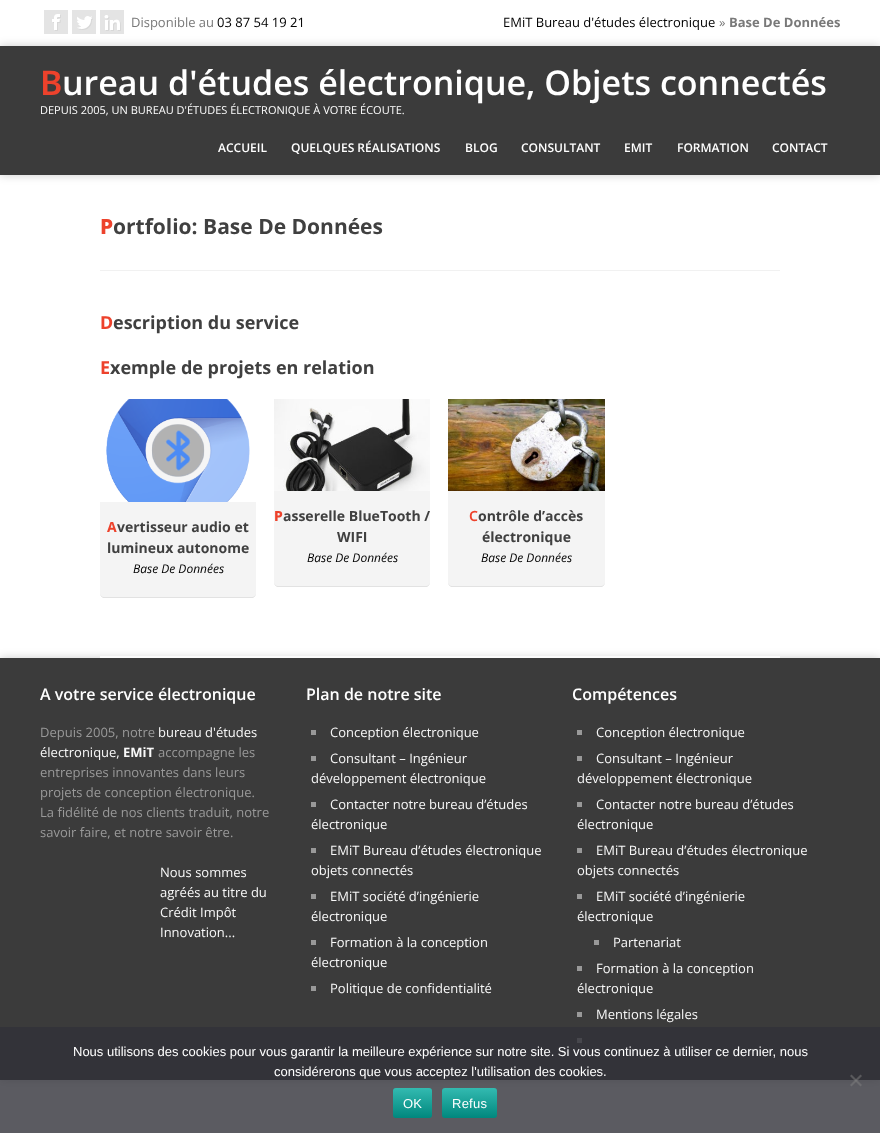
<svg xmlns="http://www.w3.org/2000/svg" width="880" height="1133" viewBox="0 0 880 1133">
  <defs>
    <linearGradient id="g1" gradientUnits="userSpaceOnUse" x1="413" y1="1088" x2="413" y2="1118"><stop offset="0" stop-color="rgb(255,255,255)" stop-opacity="0.2"/><stop offset="1" stop-color="rgb(0,0,0)" stop-opacity="0.2"/></linearGradient>
    <linearGradient id="g2" gradientUnits="userSpaceOnUse" x1="470" y1="1088" x2="470" y2="1118"><stop offset="0" stop-color="rgb(255,255,255)" stop-opacity="0.2"/><stop offset="1" stop-color="rgb(0,0,0)" stop-opacity="0.2"/></linearGradient>
  </defs>
  <rect width="100%" height="100%" fill="rgb(255,255,255)"/>
  <rect x="0" y="46" width="880" height="129" fill="rgba(0,0,0,0.2)" filter="blur(5px)"/>
  <rect x="44" y="10" width="24" height="24" fill="rgb(228,228,228)"/>
  <image x="52" y="14" width="9" height="17" href="pic1.png"/>
  <rect x="72" y="10" width="24" height="24" fill="rgb(228,228,228)"/>
  <image x="77" y="16" width="16" height="14" href="pic2.png"/>
  <rect x="100" y="10" width="24" height="24" fill="rgb(228,228,228)"/>
  <image x="104" y="15" width="17" height="16" href="pic3.png"/>
  <text x="131" y="27" font-family="Open Sans" font-size="13" fill="rgb(121,121,121)">Disponible au</text>
  <g font-family="Open Sans" font-size="13" fill="rgb(0,0,0)">
    <text x="217" y="27">03 87 54 19 21</text>
    <text x="503" y="27">EMiT Bureau d'études électronique</text>
  </g>
  <text x="719" y="27" font-family="Open Sans" font-size="13" fill="rgb(121,121,121)">»</text>
  <text x="729" y="27" font-family="Open Sans" font-size="13" font-weight="bold" fill="rgb(121,121,121)">Base De Données</text>
  <rect x="0" y="46" width="880" height="129" fill="rgb(59,59,59)"/>
  <text x="40" y="95" font-family="Noto Sans" font-size="34" font-weight="600" fill="rgb(237,66,44)">B</text>
  <text x="62" y="95" font-family="Open Sans" font-size="34" font-weight="600" fill="rgb(255,255,255)">ureau d'études électronique, Objets connectés</text>
  <text x="40" y="114" font-family="Open Sans" font-size="11" fill="rgb(255,255,255)">DEPUIS 2005, UN BUREAU D'ÉTUDES ÉLECTRONIQUE À VOTRE ÉCOUTE.</text>
  <g font-family="Open Sans" font-size="12" font-weight="600" fill="rgb(255,255,255)">
    <text x="218" y="152">ACCUEIL</text>
    <text x="291" y="152">QUELQUES RÉALISATIONS</text>
    <text x="465" y="152">BLOG</text>
    <text x="521" y="152">CONSULTANT</text>
    <text x="624" y="152">EMIT</text>
    <text x="677" y="152">FORMATION</text>
    <text x="772" y="152">CONTACT</text>
  </g>
  <rect x="100" y="270" width="680" height="1" fill="rgb(241,241,241)"/>
  <text x="100" y="234" font-family="Noto Sans" font-size="21" font-weight="800" fill="rgb(237,66,44)">P</text>
  <text x="113" y="234" font-family="Open Sans" font-size="21" font-weight="bold" fill="rgb(64,64,64)">ortfolio: Base De Données</text>
  <rect x="0" y="658" width="880" height="422" fill="rgba(0,0,0,0.2)" filter="blur(5px)"/>
  <rect x="100" y="656" width="680" height="2" fill="rgb(251,251,251)"/>
  <text x="100" y="329" font-family="Noto Sans" font-size="18" font-weight="bold" fill="rgb(237,66,44)">D</text>
  <text x="113" y="329" font-family="Open Sans" font-size="18" font-weight="bold" fill="rgb(64,64,64)">escription du service</text>
  <text x="100" y="374" font-family="Noto Sans" font-size="18" font-weight="bold" fill="rgb(237,66,44)">E</text>
  <text x="110" y="374" font-family="Open Sans" font-size="18" font-weight="bold" fill="rgb(64,64,64)">xemple de projets en relation</text>
  <image x="106" y="399" width="144" height="103" href="pic4.png"/>
  <path d="M100 502H256V594C256 596 254 598 252 598H104C102 598 100 596 100 594Z" fill="rgb(244,244,244)"/>
  <path d="M100 593C100 595 101 597 103 598H253C255 597 256 595 256 593C256 595 254 597 252 597H104C102 597 100 595 100 593Z" fill="rgba(0,0,0,0.07)"/>
  <text x="107" y="532" font-family="Noto Sans" font-size="14" font-weight="bold" fill="rgb(237,66,44)">A</text>
  <g font-family="Open Sans" font-size="14" font-weight="bold" fill="rgb(64,64,64)">
    <text x="117" y="532">vertisseur audio et</text>
    <text x="107" y="553">lumineux autonome</text>
  </g>
  <text x="133" y="573" font-family="Open Sans" font-size="12" font-style="italic" fill="rgb(0,0,0)">Base De Données</text>
  <image x="274" y="399" width="156" height="92" href="pic5.png"/>
  <path d="M274 491H430V583C430 585 428 587 426 587H278C276 587 274 585 274 583Z" fill="rgb(244,244,244)"/>
  <path d="M274 582C274 584 275 586 277 587H427C429 586 430 584 430 582C430 584 428 586 426 586H278C276 586 274 584 274 582Z" fill="rgba(0,0,0,0.07)"/>
  <text x="274" y="521" font-family="Noto Sans" font-size="14" font-weight="800" fill="rgb(237,66,44)">P</text>
  <g font-family="Open Sans" font-size="14" font-weight="bold" fill="rgb(64,64,64)">
    <text x="283" y="521">asserelle BlueTooth /</text>
    <text x="337" y="542">WIFI</text>
  </g>
  <text x="307" y="562" font-family="Open Sans" font-size="12" font-style="italic" fill="rgb(0,0,0)">Base De Données</text>
  <image x="448" y="399" width="157" height="92" href="pic6.png"/>
  <path d="M448 491H605V583C605 585 603 587 601 587H452C450 587 448 585 448 583Z" fill="rgb(244,244,244)"/>
  <path d="M448 582C448 584 449 586 451 587H602C604 586 605 584 605 582C605 584 603 586 601 586H452C450 586 448 584 448 582Z" fill="rgba(0,0,0,0.07)"/>
  <text x="469" y="521" font-family="Noto Sans" font-size="14" font-weight="600" fill="rgb(237,66,44)">C</text>
  <g font-family="Open Sans" font-size="14" font-weight="bold" fill="rgb(64,64,64)">
    <text x="478" y="521">ontrôle d’accès</text>
    <text x="482" y="542">électronique</text>
  </g>
  <text x="481" y="562" font-family="Open Sans" font-size="12" font-style="italic" fill="rgb(0,0,0)">Base De Données</text>
  <rect x="0" y="658" width="880" height="422" fill="rgb(59,59,59)"/>
  <text x="40" y="700" font-family="Open Sans" font-size="16" font-weight="600" fill="rgb(255,255,255)">A votre service électronique</text>
  <text x="40" y="737" font-family="Open Sans" font-size="13" fill="rgb(153,153,153)">Depuis 2005, notre</text>
  <g font-family="Open Sans" font-size="13" fill="rgb(248,248,248)">
    <text x="158" y="737">bureau d'études</text>
    <text x="40" y="757">électronique,</text>
  </g>
  <text x="123" y="757" font-family="Open Sans" font-size="13" font-weight="bold" fill="rgb(248,248,248)">EMiT</text>
  <g font-family="Open Sans" font-size="13" fill="rgb(153,153,153)">
    <text x="158" y="757">accompagne les</text>
    <text>
      <tspan x="40" y="777">entreprises innovantes dans leurs</tspan>
      <tspan x="40" y="797">projets de conception électronique.</tspan>
      <tspan x="40" y="817">La fidélité de nos clients traduit, notre</tspan>
      <tspan x="40" y="837">savoir faire, et notre savoir être.</tspan>
    </text>
  </g>
  <g font-family="Open Sans" font-size="13" fill="rgb(248,248,248)">
    <text>
      <tspan x="160" y="877">Nous sommes</tspan>
      <tspan x="160" y="897">agréés au titre du</tspan>
      <tspan x="160" y="917">Crédit Impôt</tspan>
      <tspan x="160" y="937">Innovation...</tspan>
    </text>
  </g>
  <text x="306" y="700" font-family="Open Sans" font-size="16" font-weight="600" fill="rgb(255,255,255)">Plan de notre site</text>
  <rect x="311" y="730" width="5" height="5" fill="rgb(153,153,153)"/>
  <text x="330" y="737" font-family="Open Sans" font-size="13" fill="rgb(248,248,248)">Conception électronique</text>
  <rect x="311" y="756" width="5" height="5" fill="rgb(153,153,153)"/>
  <g font-family="Open Sans" font-size="13" fill="rgb(248,248,248)">
    <text x="330" y="763">Consultant – Ingénieur</text>
    <text x="311" y="783">développement électronique</text>
  </g>
  <rect x="311" y="802" width="5" height="5" fill="rgb(153,153,153)"/>
  <g font-family="Open Sans" font-size="13" fill="rgb(248,248,248)">
    <text x="330" y="809">Contacter notre bureau d’études</text>
    <text x="311" y="829">électronique</text>
  </g>
  <rect x="311" y="848" width="5" height="5" fill="rgb(153,153,153)"/>
  <g font-family="Open Sans" font-size="13" fill="rgb(248,248,248)">
    <text x="330" y="855">EMiT Bureau d’études électronique</text>
    <text x="311" y="875">objets connectés</text>
  </g>
  <rect x="311" y="894" width="5" height="5" fill="rgb(153,153,153)"/>
  <g font-family="Open Sans" font-size="13" fill="rgb(248,248,248)">
    <text x="330" y="901">EMiT société d’ingénierie</text>
    <text x="311" y="921">électronique</text>
  </g>
  <rect x="311" y="940" width="5" height="5" fill="rgb(153,153,153)"/>
  <g font-family="Open Sans" font-size="13" fill="rgb(248,248,248)">
    <text x="330" y="947">Formation à la conception</text>
    <text x="311" y="967">électronique</text>
  </g>
  <rect x="311" y="986" width="5" height="5" fill="rgb(153,153,153)"/>
  <text x="330" y="993" font-family="Open Sans" font-size="13" fill="rgb(248,248,248)">Politique de confidentialité</text>
  <text x="572" y="700" font-family="Open Sans" font-size="16" font-weight="600" fill="rgb(255,255,255)">Compétences</text>
  <rect x="577" y="730" width="5" height="5" fill="rgb(153,153,153)"/>
  <text x="596" y="737" font-family="Open Sans" font-size="13" fill="rgb(248,248,248)">Conception électronique</text>
  <rect x="577" y="756" width="5" height="5" fill="rgb(153,153,153)"/>
  <g font-family="Open Sans" font-size="13" fill="rgb(248,248,248)">
    <text x="596" y="763">Consultant – Ingénieur</text>
    <text x="577" y="783">développement électronique</text>
  </g>
  <rect x="577" y="802" width="5" height="5" fill="rgb(153,153,153)"/>
  <g font-family="Open Sans" font-size="13" fill="rgb(248,248,248)">
    <text x="596" y="809">Contacter notre bureau d’études</text>
    <text x="577" y="829">électronique</text>
  </g>
  <rect x="577" y="848" width="5" height="5" fill="rgb(153,153,153)"/>
  <g font-family="Open Sans" font-size="13" fill="rgb(248,248,248)">
    <text x="596" y="855">EMiT Bureau d’études électronique</text>
    <text x="577" y="875">objets connectés</text>
  </g>
  <rect x="577" y="894" width="5" height="5" fill="rgb(153,153,153)"/>
  <g font-family="Open Sans" font-size="13" fill="rgb(248,248,248)">
    <text x="596" y="901">EMiT société d’ingénierie</text>
    <text x="577" y="921">électronique</text>
  </g>
  <rect x="594" y="940" width="5" height="5" fill="rgb(153,153,153)"/>
  <text x="613" y="947" font-family="Open Sans" font-size="13" fill="rgb(248,248,248)">Partenariat</text>
  <rect x="577" y="966" width="5" height="5" fill="rgb(153,153,153)"/>
  <g font-family="Open Sans" font-size="13" fill="rgb(248,248,248)">
    <text x="596" y="973">Formation à la conception</text>
    <text x="577" y="993">électronique</text>
  </g>
  <rect x="577" y="1012" width="5" height="5" fill="rgb(153,153,153)"/>
  <text x="596" y="1019" font-family="Open Sans" font-size="13" fill="rgb(248,248,248)">Mentions légales</text>
  <rect x="577" y="1038" width="5" height="5" fill="rgb(153,153,153)"/>
  <rect x="0" y="1027" width="880" height="106" fill="rgba(50,50,58,0.8)"/>
  <g font-family="Liberation Sans" font-size="13" fill="rgb(255,255,255)">
    <text x="73" y="1056">Nous utilisons des cookies pour vous garantir la meilleure expérience sur notre site. Si vous continuez à utiliser ce dernier, nous</text>
    <text x="274" y="1076">considérerons que vous acceptez l'utilisation des cookies.</text>
  </g>
  <path d="M860.5 1074.5L862 1076L851.5 1086.5L850 1085Z" fill="rgba(128,128,128,0.5)"/>
  <path d="M850 1076L851.5 1074.5L862 1085L860.5 1086.5Z" fill="rgba(128,128,128,0.5)"/>
  <rect x="393" y="1088" width="39" height="30" rx="3" fill="rgb(0,169,157)"/>
  <rect x="393" y="1088" width="39" height="30" rx="3" fill="url(#g1)"/>
  <text x="403" y="1108" font-family="Liberation Sans" font-size="13" letter-spacing="0.25" fill="rgb(255,255,255)">OK</text>
  <rect x="442" y="1088" width="55" height="30" rx="3" fill="rgb(0,169,157)"/>
  <rect x="442" y="1088" width="55" height="30" rx="3" fill="url(#g2)"/>
  <text x="452" y="1108" font-family="Liberation Sans" font-size="13" letter-spacing="0.25" fill="rgb(255,255,255)">Refus</text>
</svg>
